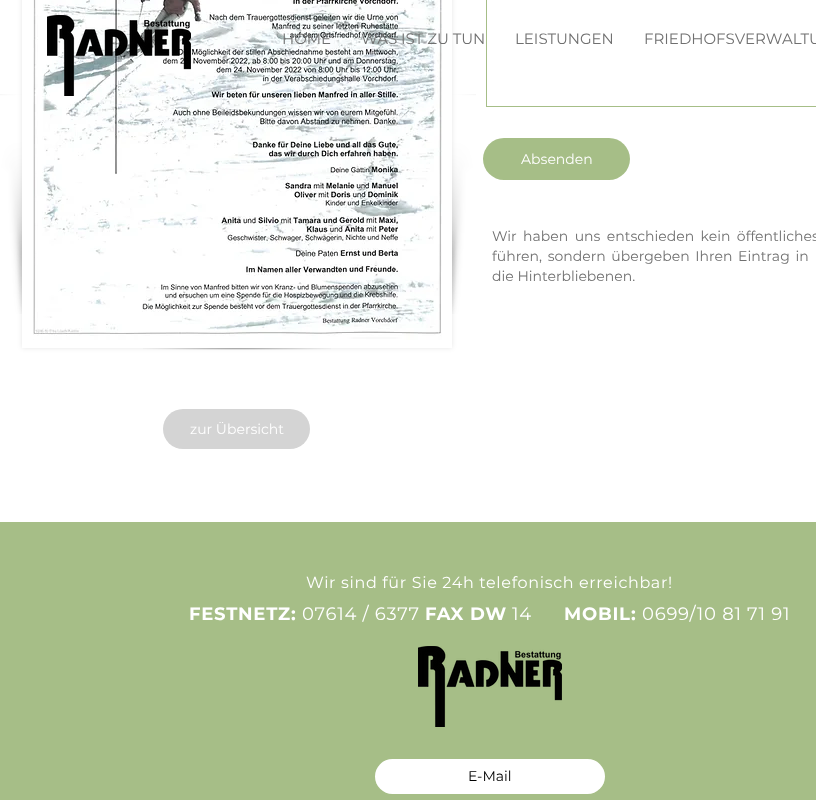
<svg xmlns="http://www.w3.org/2000/svg" width="816" height="800" viewBox="0 0 816 800">
  <defs>
    <clipPath id="clip1"><path d="M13 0H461V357H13ZM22-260H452V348H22Z" clip-rule="evenodd"/></clipPath>
  </defs>
  <rect width="100%" height="100%" fill="rgb(255,255,255)"/>
  <g clip-path="url(#clip1)">
    <rect x="22" y="-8" width="430" height="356" fill="rgba(0,0,0,0.1)" filter="blur(2.5px)"/>
  </g>
  <image x="33" y="0" width="409" height="340" href="pic3.png"/>
  <image x="47" y="15" width="144" height="81" href="pic1.png"/>
  <g font-family="Montserrat" font-size="15" fill="rgb(112,112,112)">
    <text x="282" y="44">HOME</text>
    <text x="361" y="44">WAS IST ZU TUN</text>
  </g>
  <rect x="486.5" y="-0.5" width="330" height="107" fill="none" stroke="rgb(166,190,135)"/>
  <g font-family="Montserrat" font-size="15" fill="rgb(112,112,112)">
    <text x="515" y="44">LEISTUNGEN</text>
    <text x="644" y="44">FRIEDHOFSVERWALTU</text>
  </g>
  <image x="0" y="94" width="22" height="220" href="pic2.png"/>
  <image x="143" y="348" width="188" height="2" href="pic4.png"/>
  <image x="452" y="94" width="24" height="220" href="pic5.png"/>
  <rect x="483" y="138" width="147" height="42" rx="21" fill="rgb(166,190,135)"/>
  <text x="521" y="164" font-family="Montserrat" font-size="14" fill="rgb(255,255,255)">Absenden</text>
  <g font-family="Montserrat" font-size="14" fill="rgb(112,112,112)">
    <text>
      <tspan x="492" y="241" word-spacing="2.75">Wir haben uns entschieden kein öffentliches</tspan>
      <tspan x="492" y="261" word-spacing="2">führen, sondern übergeben Ihren Eintrag in</tspan>
      <tspan x="492" y="281">die Hinterbliebenen.</tspan>
    </text>
  </g>
  <rect x="163" y="409" width="147" height="40" rx="20" fill="rgb(212,212,212)"/>
  <text x="190" y="434" font-family="Montserrat" font-size="14" fill="rgb(255,255,255)">zur Übersicht</text>
  <rect x="0" y="522" width="816" height="278" fill="rgb(166,190,135)"/>
  <text x="306" y="588" font-family="Montserrat" font-size="16" letter-spacing="0.65" fill="rgb(255,255,255)">Wir sind für Sie 24h telefonisch erreichbar!</text>
  <text x="189" y="620" font-family="Montserrat" font-size="18" font-weight="bold" letter-spacing="0.75" fill="rgb(255,255,255)">FESTNETZ:</text>
  <text x="302" y="620" font-family="Montserrat" font-size="18" letter-spacing="0.75" fill="rgb(255,255,255)">07614 / 6377</text>
  <text x="425" y="620" font-family="Montserrat" font-size="18" font-weight="bold" letter-spacing="0.75" fill="rgb(255,255,255)">FAX DW</text>
  <text x="512" y="620" font-family="Montserrat" font-size="18" letter-spacing="0.75" fill="rgb(255,255,255)">14</text>
  <text x="564" y="620" font-family="Montserrat" font-size="18" font-weight="bold" letter-spacing="0.75" fill="rgb(255,255,255)">MOBIL:</text>
  <text x="642" y="620" font-family="Montserrat" font-size="18" letter-spacing="0.75" fill="rgb(255,255,255)">0699/10 81 71 91</text>
  <image x="418" y="646" width="144" height="81" href="pic6.png"/>
  <rect x="375" y="759" width="230" height="35" rx="17.5" fill="rgb(255,255,255)"/>
  <text x="468" y="781" font-family="Montserrat" font-size="14" fill="rgb(0,0,0)">E-Mail</text>
</svg>
